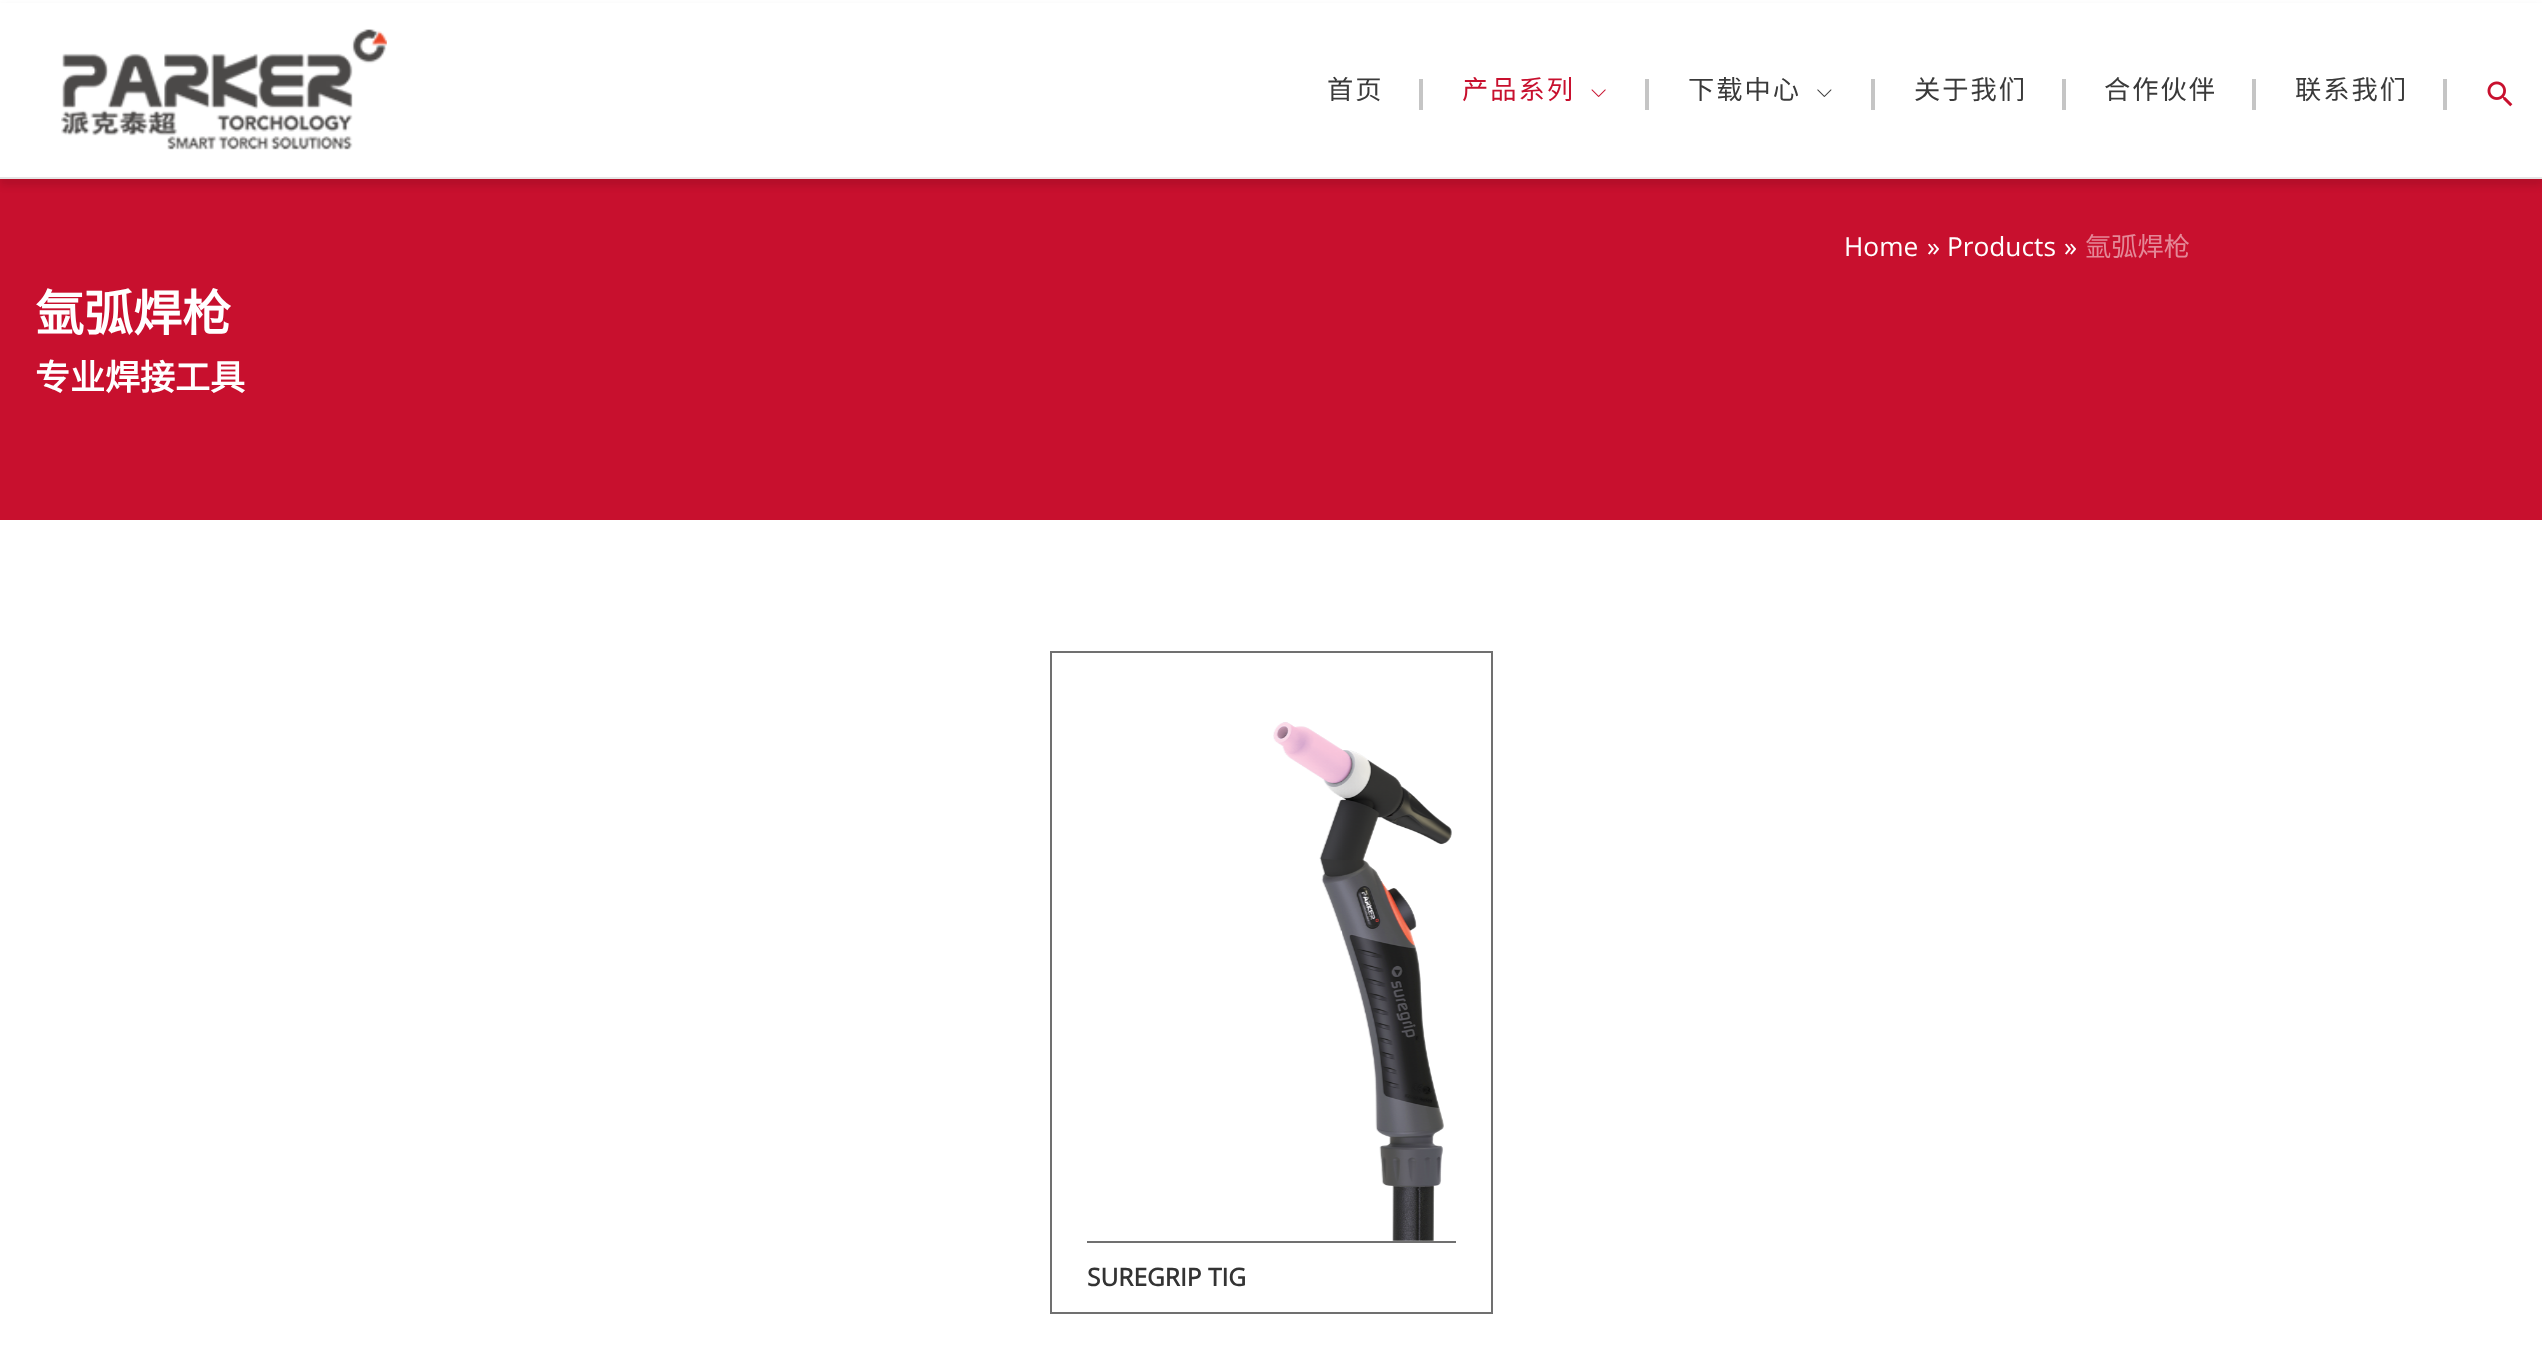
<svg xmlns="http://www.w3.org/2000/svg" width="2542" height="1352" viewBox="0 0 2542 1352">
  <rect width="100%" height="100%" fill="rgb(255,255,255)"/>
  <rect x="0" y="179" width="2542" height="341" fill="rgb(200,16,46)"/>
  <rect x="0" y="7" width="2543" height="179" fill="rgba(0,0,0,0.1)" filter="blur(3.5px)"/>
  <rect x="0" y="3" width="2542" height="174" fill="rgb(255,255,255)"/>
  <rect x="0" y="177" width="2542" height="2" fill="rgb(229,229,229)"/>
  <image x="61" y="29" width="326" height="121" href="pic1.png"/>
  <text x="1327" y="99" font-family="Noto Sans CJK SC" font-size="26.25" letter-spacing="2" fill="rgb(58,58,58)">首页</text>
  <rect x="1419" y="79" width="4" height="31" fill="rgb(197,197,197)"/>
  <text x="1462" y="99" font-family="Noto Sans CJK SC" font-size="26.25" letter-spacing="2" fill="rgb(200,16,46)">产品系列</text>
  <image x="1591" y="89" width="15" height="8" href="pic2.png"/>
  <rect x="1645" y="79" width="4" height="31" fill="rgb(197,197,197)"/>
  <text x="1688" y="99" font-family="Noto Sans CJK SC" font-size="26.25" letter-spacing="2" fill="rgb(58,58,58)">下载中心</text>
  <image x="1817" y="89" width="15" height="8" href="pic3.png"/>
  <rect x="1871" y="79" width="4" height="31" fill="rgb(197,197,197)"/>
  <text x="1914" y="99" font-family="Noto Sans CJK SC" font-size="26.25" letter-spacing="2" fill="rgb(58,58,58)">关于我们</text>
  <rect x="2062" y="79" width="4" height="31" fill="rgb(197,197,197)"/>
  <text x="2104" y="99" font-family="Noto Sans CJK SC" font-size="26.25" letter-spacing="2" fill="rgb(58,58,58)">合作伙伴</text>
  <rect x="2252" y="79" width="4" height="31" fill="rgb(197,197,197)"/>
  <text x="2295" y="99" font-family="Noto Sans CJK SC" font-size="26.25" letter-spacing="2" fill="rgb(58,58,58)">联系我们</text>
  <rect x="2443" y="79" width="4" height="31" fill="rgb(197,197,197)"/>
  <image x="2487" y="81" width="26" height="26" href="pic4.png"/>
  <g font-family="Open Sans" font-size="26.25" fill="rgb(255,255,255)">
    <text x="1844" y="256">Home</text>
    <text x="1927" y="256">»</text>
    <text x="1947" y="256">Products</text>
    <text x="2064" y="256">»</text>
  </g>
  <text x="2085" y="256" font-family="Noto Sans CJK SC" font-size="26.25" fill="rgb(228,136,151)">氩弧焊枪</text>
  <text x="35" y="331" font-family="Noto Sans CJK SC" font-size="49" font-weight="bold" fill="rgb(255,255,255)">氩弧焊枪</text>
  <text x="35" y="390" font-family="Noto Sans CJK SC" font-size="35" font-weight="bold" fill="rgb(255,255,255)">专业焊接工具</text>
  <rect x="1051" y="652" width="441" height="661" fill="none" stroke="rgb(112,112,112)" stroke-width="2"/>
  <image x="1273" y="722" width="179" height="519" href="pic5.png"/>
  <rect x="1087" y="1241" width="369" height="2" fill="rgb(112,112,112)"/>
  <text x="1087" y="1286" font-family="Open Sans" font-size="24.5" font-weight="bold" fill="rgb(51,51,51)">SUREGRIP TIG</text>
</svg>
